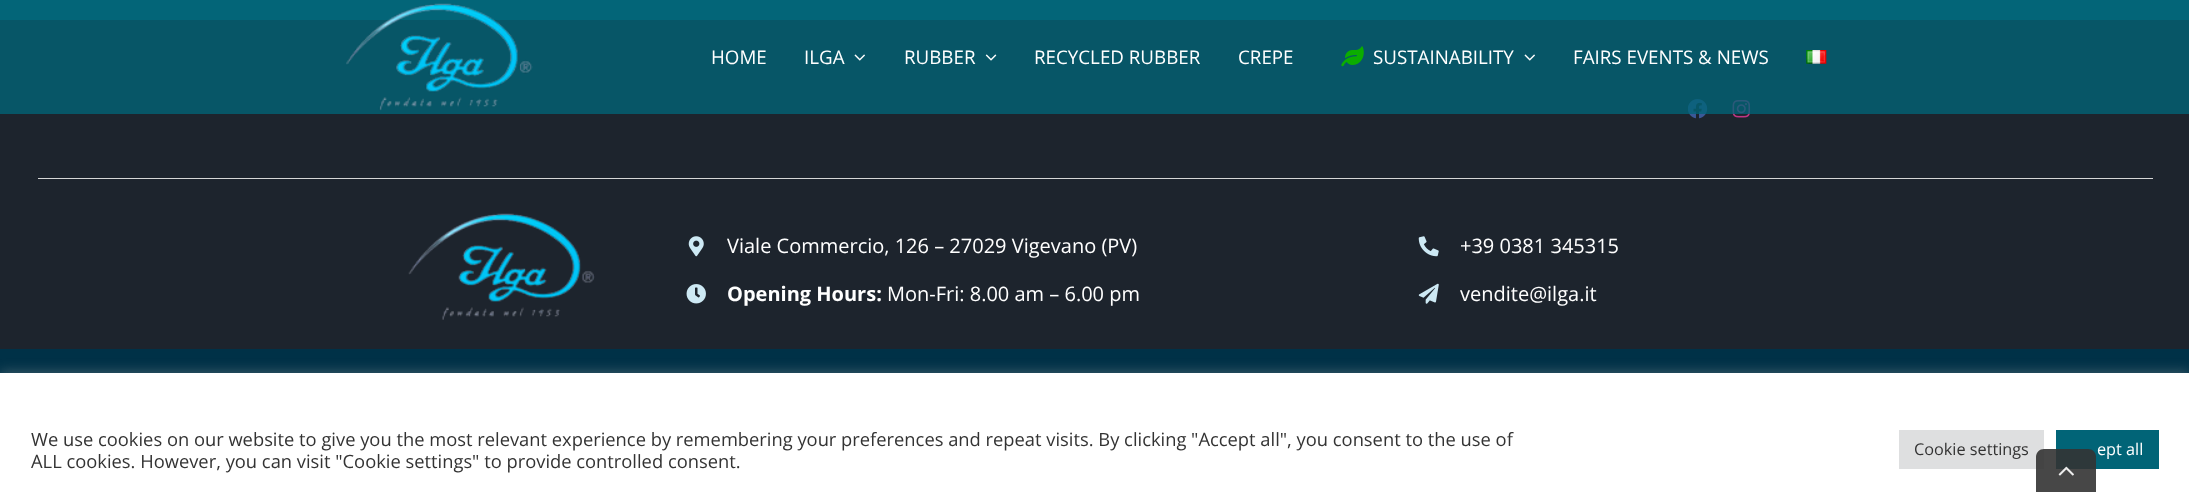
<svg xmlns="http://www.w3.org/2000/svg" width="2189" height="492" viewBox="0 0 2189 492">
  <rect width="100%" height="100%" fill="rgb(12,106,124)"/>
  <rect x="0" y="20" width="2189" height="329" fill="rgb(29,36,45)"/>
  <image x="1688" y="99" width="20" height="20" href="pic6.png"/>
  <image x="1732" y="100" width="19" height="18" href="pic7.png"/>
  <rect x="0" y="0" width="2189" height="114" fill="rgba(1,100,119,0.78)"/>
  <image x="346" y="3" width="187" height="108" href="pic1.png"/>
  <g font-family="Open Sans" font-size="18.75" fill="rgb(255,255,255)">
    <text x="711" y="64">HOME</text>
    <text x="804" y="64">ILGA</text>
  </g>
  <image x="854" y="54" width="11" height="7" href="pic2.png"/>
  <text x="904" y="64" font-family="Open Sans" font-size="18.75" fill="rgb(255,255,255)">RUBBER</text>
  <image x="985" y="54" width="12" height="7" href="pic3.png"/>
  <g font-family="Open Sans" font-size="18.75" fill="rgb(255,255,255)">
    <text x="1034" y="64">RECYCLED RUBBER</text>
    <text x="1238" y="64">CREPE</text>
  </g>
  <image x="1341" y="46" width="23" height="21" href="pic4.png"/>
  <text x="1373" y="64" font-family="Open Sans" font-size="18.75" fill="rgb(255,255,255)">SUSTAINABILITY</text>
  <image x="1524" y="54" width="11" height="7" href="pic2.png"/>
  <text x="1573" y="64" font-family="Open Sans" font-size="18.75" fill="rgb(255,255,255)">FAIRS EVENTS &amp; NEWS</text>
  <image x="1806" y="50" width="21" height="14" href="pic5.png"/>
  <rect x="38" y="178" width="2115" height="1" fill="rgb(214,214,214)"/>
  <image x="408" y="213" width="187" height="107" href="pic8.png"/>
  <image x="688" y="236" width="16" height="21" href="pic9.png"/>
  <text x="727" y="253" font-family="Open Sans" font-size="20" fill="rgb(255,255,255)">Viale Commercio, 126 – 27029 Vigevano (PV)</text>
  <image x="686" y="284" width="20" height="20" href="pic10.png"/>
  <text x="727" y="301" font-family="Open Sans" font-size="20" font-weight="bold" fill="rgb(255,255,255)">Opening Hours:</text>
  <text x="887" y="301" font-family="Open Sans" font-size="20" fill="rgb(255,255,255)">Mon-Fri: 8.00 am – 6.00 pm</text>
  <image x="1418" y="236" width="21" height="21" href="pic11.png"/>
  <text x="1460" y="253" font-family="Open Sans" font-size="20" fill="rgb(255,255,255)">+39 0381 345315</text>
  <image x="1418" y="283" width="21" height="21" href="pic12.png"/>
  <text x="1460" y="301" font-family="Open Sans" font-size="20" fill="rgb(255,255,255)">vendite@ilga.it</text>
  <rect x="0" y="349" width="2189" height="24" fill="rgb(0,49,71)"/>
  <rect x="0" y="371" width="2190" height="120" fill="rgba(172,171,171,0.3)" filter="blur(6px)"/>
  <rect x="0" y="373" width="2189" height="119" fill="rgb(255,255,255)"/>
  <g font-family="Open Sans" font-size="18.33" fill="rgb(51,51,51)">
    <text>
      <tspan x="31" y="446">We use cookies on our website to give you the most relevant experience by remembering your preferences and repeat visits. By clicking "Accept all", you consent to the use of</tspan>
      <tspan x="31" y="468">ALL cookies. However, you can visit "Cookie settings" to provide controlled consent.</tspan>
    </text>
  </g>
  <rect x="1899" y="430" width="145" height="39" fill="rgb(222,223,224)"/>
  <text x="1914" y="455" font-family="Open Sans" font-size="16.25" fill="rgb(51,51,51)">Cookie settings</text>
  <rect x="2056" y="430" width="103" height="39" fill="rgb(1,100,119)"/>
  <text x="2097" y="455" font-family="Open Sans" font-size="16.25" fill="rgb(255,255,255)">ept all</text>
  <path d="M2044 449H2088C2092.5 449 2096 452.5 2096 457V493H2036V457C2036 452.5 2039.5 449 2044 449Z" fill="rgba(51,51,51,0.9)"/>
  <image x="2058" y="466" width="16" height="10" href="pic13.png"/>
</svg>
